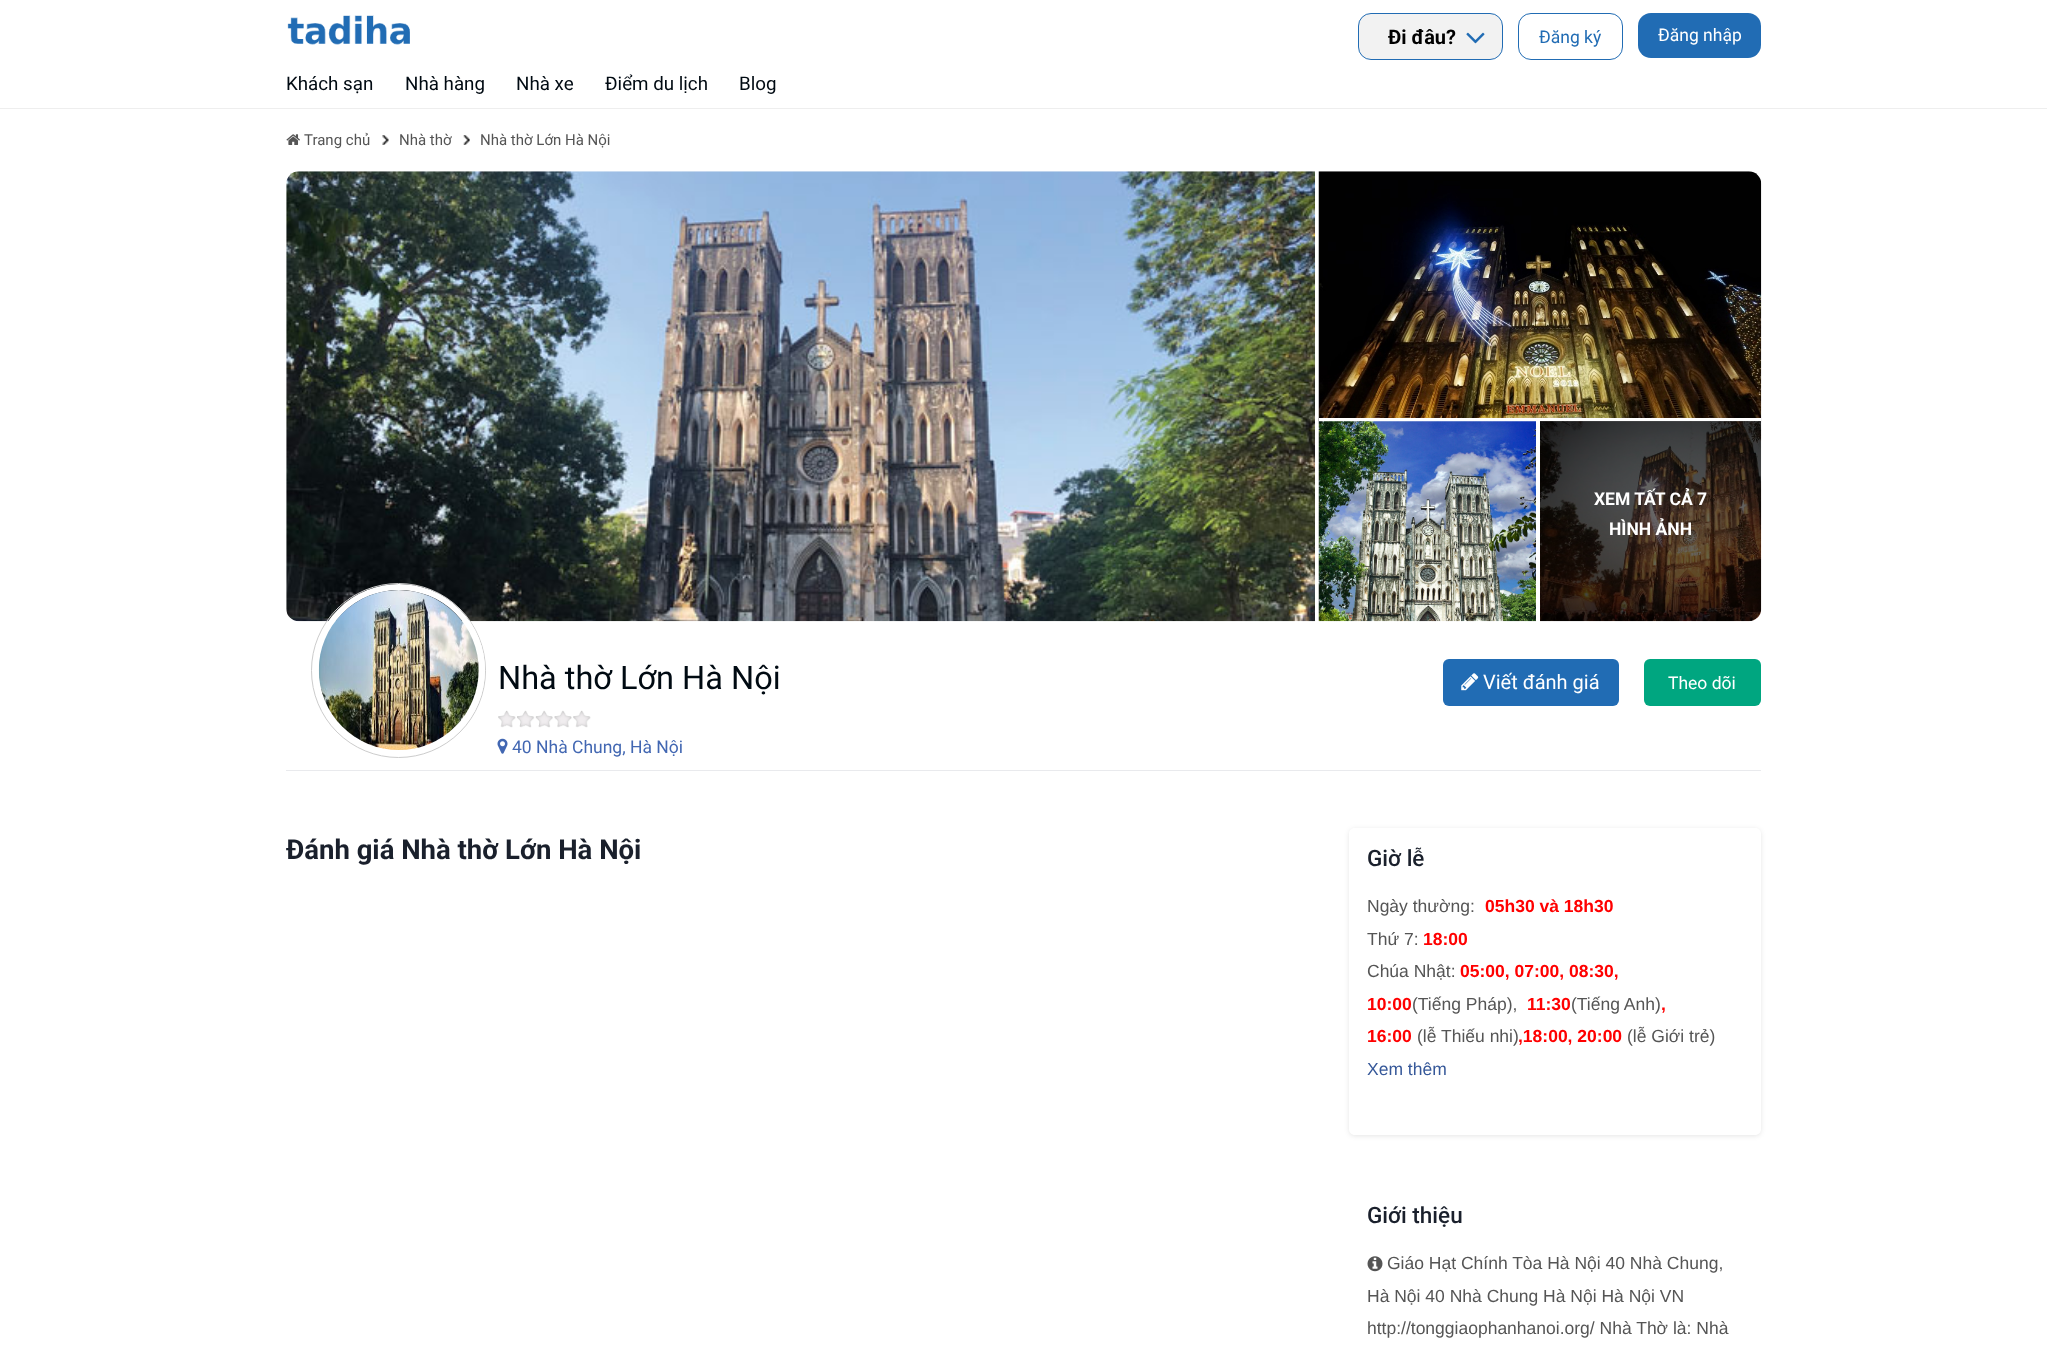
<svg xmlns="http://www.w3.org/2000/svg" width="2047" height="1357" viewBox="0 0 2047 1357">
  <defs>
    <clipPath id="clip1"><path d="M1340 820H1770V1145H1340ZM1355 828H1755C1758.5 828 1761 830.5 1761 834V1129C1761 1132.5 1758.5 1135 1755 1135H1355C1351.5 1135 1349 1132.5 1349 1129V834C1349 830.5 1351.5 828 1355 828Z" clip-rule="evenodd"/></clipPath>
  </defs>
  <rect width="100%" height="100%" fill="rgb(255,255,255)"/>
  <image x="287" y="15" width="123" height="30" href="pic1.png"/>
  <rect x="1358.5" y="13.5" width="144" height="46" rx="12.5" fill="rgb(242,242,242)" stroke="rgb(33,108,180)"/>
  <text x="1388" y="44" font-family="Roboto" font-size="20" font-weight="bold" fill="rgb(0,0,0)">Đi đâu?</text>
  <image x="1466" y="32" width="19" height="12" href="pic2.png"/>
  <rect x="1518.5" y="13.5" width="104" height="46" rx="12.5" fill="none" stroke="rgb(33,108,180)"/>
  <text x="1539" y="43" font-family="Roboto" font-size="17.5" fill="rgb(33,108,180)">Đăng ký</text>
  <rect x="1638" y="13" width="123" height="45" rx="13" fill="rgb(33,108,180)"/>
  <text x="1658" y="41" font-family="Roboto" font-size="17.5" fill="rgb(255,255,255)">Đăng nhập</text>
  <rect x="0" y="108" width="2047" height="1" fill="rgb(238,238,238)"/>
  <g font-family="Roboto" font-size="18.75" fill="rgb(0,10,18)">
    <text x="286" y="90">Khách sạn</text>
    <text x="405" y="90">Nhà hàng</text>
    <text x="516" y="90">Nhà xe</text>
    <text x="605" y="90">Điểm du lịch</text>
    <text x="739" y="90">Blog</text>
  </g>
  <image x="286" y="134" width="14" height="11" href="pic3.png"/>
  <text x="304" y="145" font-family="Roboto" font-size="15" fill="rgb(85,85,85)">Trang chủ</text>
  <image x="382" y="135" width="7" height="10" href="pic4.png"/>
  <text x="399" y="145" font-family="Roboto" font-size="15" fill="rgb(85,85,85)">Nhà thờ</text>
  <image x="463" y="135" width="7" height="10" href="pic5.png"/>
  <text x="480" y="145" font-family="Roboto" font-size="15" fill="rgb(85,85,85)">Nhà thờ Lớn Hà Nội</text>
  <image x="286" y="171" width="1029" height="451" href="pic6.png"/>
  <image x="1318" y="171" width="444" height="251" href="pic7.png"/>
  <rect x="1319" y="418" width="442" height="4" fill="rgb(255,255,255)"/>
  <image x="1318" y="421" width="218" height="201" href="pic8.png"/>
  <image x="1540" y="421" width="222" height="201" href="pic9.png"/>
  <path d="M1540 421H1761V608C1761 615 1755 621 1748 621H1540Z" fill="rgba(0,0,0,0.58)"/>
  <g font-family="Roboto" font-size="17.5" font-weight="bold" fill="rgb(255,255,255)">
    <text x="1594" y="505">XEM TẤT CẢ 7</text>
    <text x="1609" y="535">HÌNH ẢNH</text>
  </g>
  <rect x="286" y="770" width="1475" height="1" fill="rgb(233,234,237)"/>
  <circle cx="398.5" cy="670.5" r="87" fill="none" stroke="rgb(204,204,204)"/>
  <circle cx="399" cy="670" r="83" fill="none" stroke="rgb(255,255,255)" stroke-width="6"/>
  <image x="318" y="590" width="161" height="160" href="pic10.png"/>
  <text x="498" y="689" font-family="Roboto" font-size="32.5" fill="rgb(0,10,18)">Nhà thờ Lớn Hà Nội</text>
  <image x="498" y="710" width="93" height="18" href="pic11.png"/>
  <image x="497" y="738" width="11" height="16" href="pic12.png"/>
  <text x="512" y="753" font-family="Roboto" font-size="17.5" fill="rgb(66,103,178)">40 Nhà Chung, Hà Nội</text>
  <rect x="1443" y="659" width="176" height="47" rx="6" fill="rgb(33,108,180)"/>
  <image x="1461" y="673" width="18" height="18" href="pic13.png"/>
  <text x="1483" y="689" font-family="Roboto" font-size="20" fill="rgb(255,255,255)">Viết đánh giá</text>
  <rect x="1644" y="659" width="117" height="47" rx="6" fill="rgb(0,166,128)"/>
  <text x="1668" y="689" font-family="Roboto" font-size="17.5" fill="rgb(255,255,255)">Theo dõi</text>
  <text x="286" y="859" font-family="Roboto" font-size="27.5" font-weight="bold" fill="rgb(26,32,44)">Đánh giá Nhà thờ Lớn Hà Nội</text>
  <g clip-path="url(#clip1)">
    <rect x="1349" y="829" width="412" height="307" rx="6" fill="rgba(0,0,0,0.1)" filter="blur(2.5px)"/>
  </g>
  <text x="1367" y="866" font-family="Roboto" font-size="22.5" font-weight="500" fill="rgb(26,32,44)">Giờ lễ</text>
  <text x="1367" y="912" font-family="Liberation Sans" font-size="17.5" fill="rgb(85,85,85)">Ngày thường:</text>
  <text x="1485" y="912" font-family="Liberation Sans" font-size="17.5" font-weight="bold" fill="rgb(255,0,0)">05h30 và 18h30</text>
  <text x="1367" y="945" font-family="Liberation Sans" font-size="17.5" fill="rgb(85,85,85)">Thứ 7:</text>
  <text x="1423" y="945" font-family="Liberation Sans" font-size="17.5" font-weight="bold" fill="rgb(255,0,0)">18:00</text>
  <text x="1367" y="977" font-family="Liberation Sans" font-size="17.5" fill="rgb(85,85,85)">Chúa Nhật:</text>
  <g font-family="Liberation Sans" font-size="17.5" font-weight="bold" fill="rgb(255,0,0)">
    <text x="1460" y="977">05:00, 07:00, 08:30,</text>
    <text x="1367" y="1010">10:00</text>
  </g>
  <text x="1412" y="1010" font-family="Liberation Sans" font-size="17.5" fill="rgb(85,85,85)">(Tiếng Pháp),</text>
  <text x="1527" y="1010" font-family="Liberation Sans" font-size="17.5" font-weight="bold" fill="rgb(255,0,0)">11:30</text>
  <text x="1571" y="1010" font-family="Liberation Sans" font-size="17.5" fill="rgb(85,85,85)">(Tiếng Anh)</text>
  <g font-family="Liberation Sans" font-size="17.5" font-weight="bold" fill="rgb(255,0,0)">
    <text x="1661" y="1010">,</text>
    <text x="1367" y="1042">16:00</text>
  </g>
  <text x="1417" y="1042" font-family="Liberation Sans" font-size="17.5" fill="rgb(85,85,85)">(lễ Thiếu nhi)</text>
  <text x="1518" y="1042" font-family="Liberation Sans" font-size="17.5" font-weight="bold" fill="rgb(255,0,0)">,18:00, 20:00</text>
  <text x="1627" y="1042" font-family="Liberation Sans" font-size="17.5" fill="rgb(85,85,85)">(lễ Giới trẻ)</text>
  <text x="1367" y="1075" font-family="Liberation Sans" font-size="17.5" fill="rgb(54,88,153)">Xem thêm</text>
  <text x="1367" y="1223" font-family="Roboto" font-size="22.5" font-weight="500" fill="rgb(26,32,44)">Giới thiệu</text>
  <image x="1367" y="1256" width="16" height="16" href="pic14.png"/>
  <g font-family="Liberation Sans" font-size="17.5" fill="rgb(85,85,85)">
    <text x="1387" y="1269">Giáo Hạt Chính Tòa Hà Nội 40 Nhà Chung,</text>
    <text>
      <tspan x="1367" y="1302">Hà Nội 40 Nhà Chung Hà Nội Hà Nội VN</tspan>
      <tspan x="1367" y="1334">http://tonggiaophanhanoi.org/ Nhà Thờ là: Nhà</tspan>
    </text>
  </g>
</svg>
